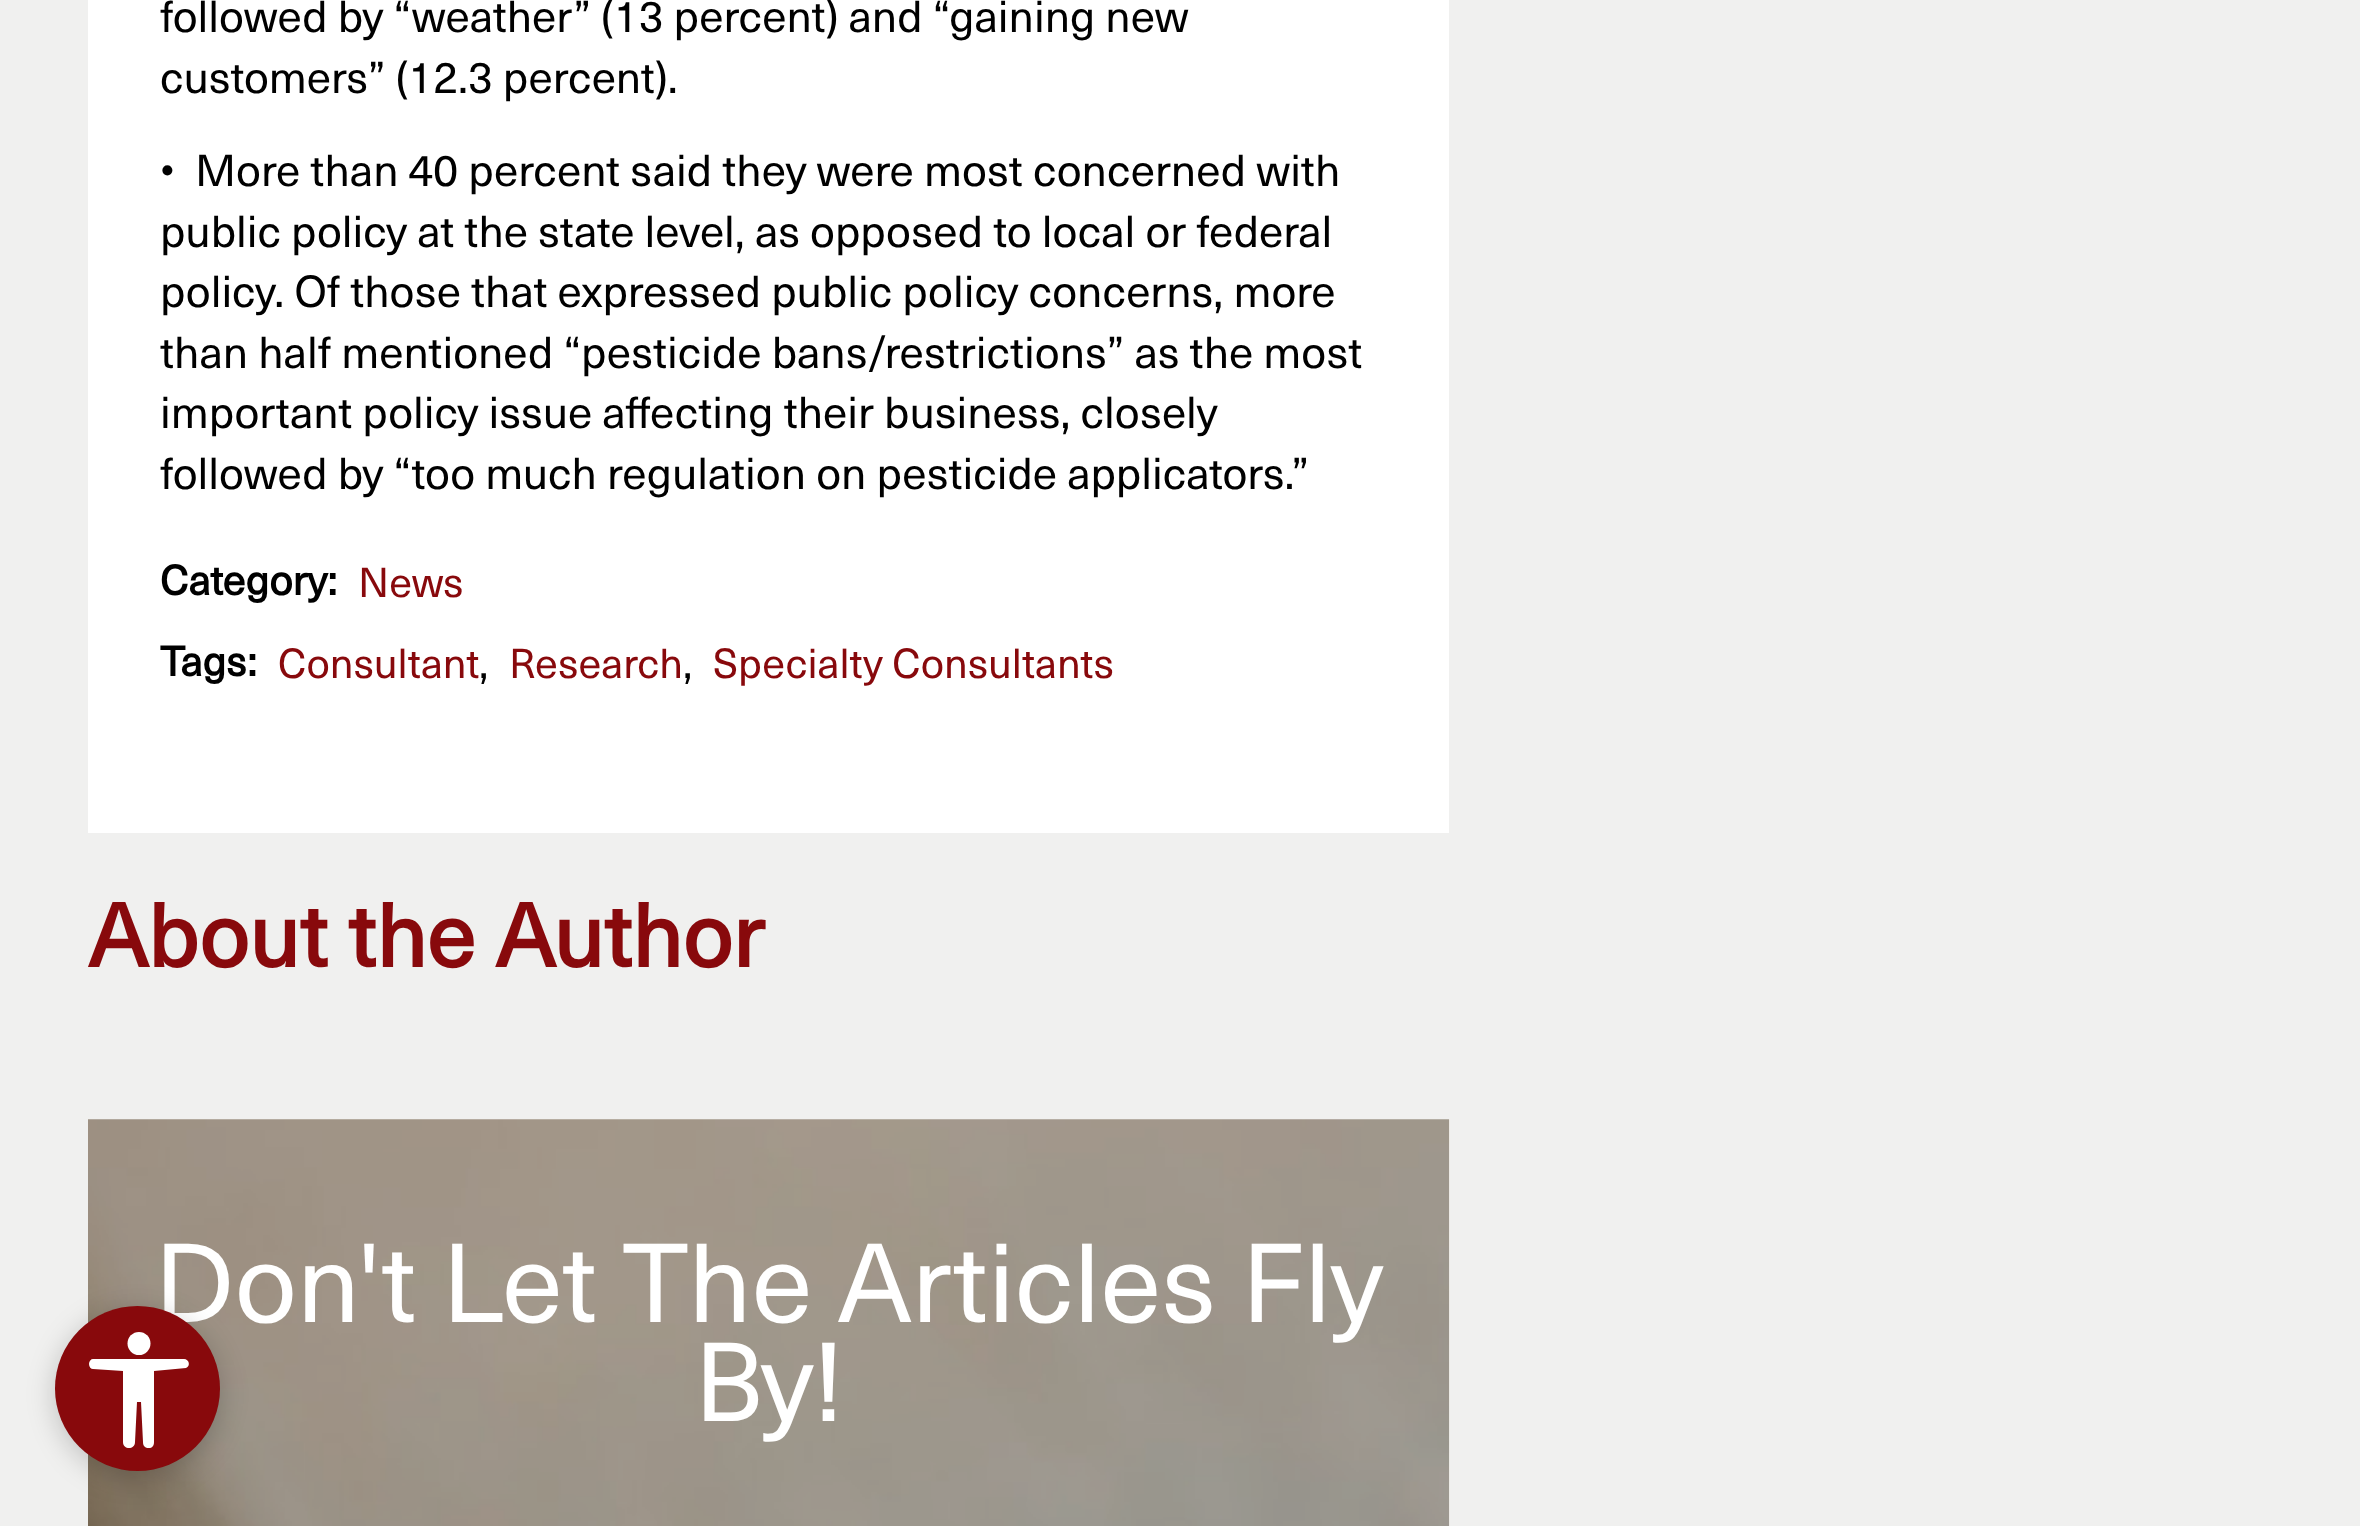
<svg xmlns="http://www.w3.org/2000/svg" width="2360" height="1526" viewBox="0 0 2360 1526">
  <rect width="100%" height="100%" fill="rgb(240,240,239)"/>
  <rect x="88" y="0" width="1361" height="833" fill="rgb(255,255,255)"/>
  <g font-family="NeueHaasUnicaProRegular" font-size="44" fill="rgb(0,0,0)">
    <text>
      <tspan x="160" y="32">followed by “weather” (13 percent) and “gaining new</tspan>
      <tspan x="160" y="93">customers” (12.3 percent).</tspan>
    </text>
    <text xml:space="preserve"><tspan x="160" y="186">•  More than 40 percent said they were most concerned with</tspan><tspan x="160" y="247">public policy at the state level, as opposed to local or federal</tspan><tspan x="160" y="307">policy. Of those that expressed public policy concerns, more</tspan><tspan x="160" y="368">than half mentioned “pesticide bans/restrictions” as the most</tspan><tspan x="160" y="428">important policy issue affecting their business, closely</tspan><tspan x="160" y="489">followed by “too much regulation on pesticide applicators.”</tspan></text>
  </g>
  <text x="160" y="595" font-family="NeueHaasUnicaProRegular" font-size="41.25" font-weight="bold" fill="rgb(0,0,0)">Category:</text>
  <text x="358" y="597" font-family="NeueHaasUnicaProRegular" font-size="41.25" fill="rgb(136,9,12)">News</text>
  <text x="160" y="676" font-family="NeueHaasUnicaProRegular" font-size="41.25" font-weight="bold" fill="rgb(0,0,0)">Tags:</text>
  <text x="278" y="678" font-family="NeueHaasUnicaProRegular" font-size="41.25" fill="rgb(136,9,12)">Consultant</text>
  <text x="479" y="678" font-family="NeueHaasUnicaProRegular" font-size="41.25" fill="rgb(0,0,0)">,</text>
  <text x="509" y="678" font-family="NeueHaasUnicaProRegular" font-size="41.25" fill="rgb(136,9,12)">Research</text>
  <text x="683" y="678" font-family="NeueHaasUnicaProRegular" font-size="41.25" fill="rgb(0,0,0)">,</text>
  <text x="713" y="678" font-family="NeueHaasUnicaProRegular" font-size="41.25" fill="rgb(136,9,12)">Specialty Consultants</text>
  <text x="88" y="967" font-family="NeueHaasUnicaProRegular" font-size="88" font-weight="bold" fill="rgb(136,9,12)">About the Author</text>
  <image x="88" y="1119" width="1362" height="407" href="pic1.png"/>
  <g font-family="NeueHaasUnicaProRegular" font-size="110" fill="rgb(255,255,255)">
    <text x="154" y="1322">Don't Let The Articles Fly</text>
    <text x="694" y="1421">By!</text>
  </g>
  <rect x="55" y="1312" width="165" height="165" rx="82.5" fill="rgba(0,0,0,0.2)" filter="blur(14px)"/>
  <circle cx="137.5" cy="1388.5" r="82.5" fill="rgb(136,9,12)"/>
  <circle cx="139" cy="1343.5" r="11.5" fill="rgb(255,255,255)"/>
  <path d="M184 1359H93C91 1359 89 1361 89 1364C89 1367 91 1369 93 1369L123 1371V1442C123 1446 126 1448 129 1448C132 1448 135 1446 135 1442L137 1402H141L143 1442C143 1446 145 1448 149 1448C152 1448 154 1446 154 1442V1371L186 1368C191 1366 189 1359 184 1359Z" fill="rgb(255,255,255)"/>
</svg>
